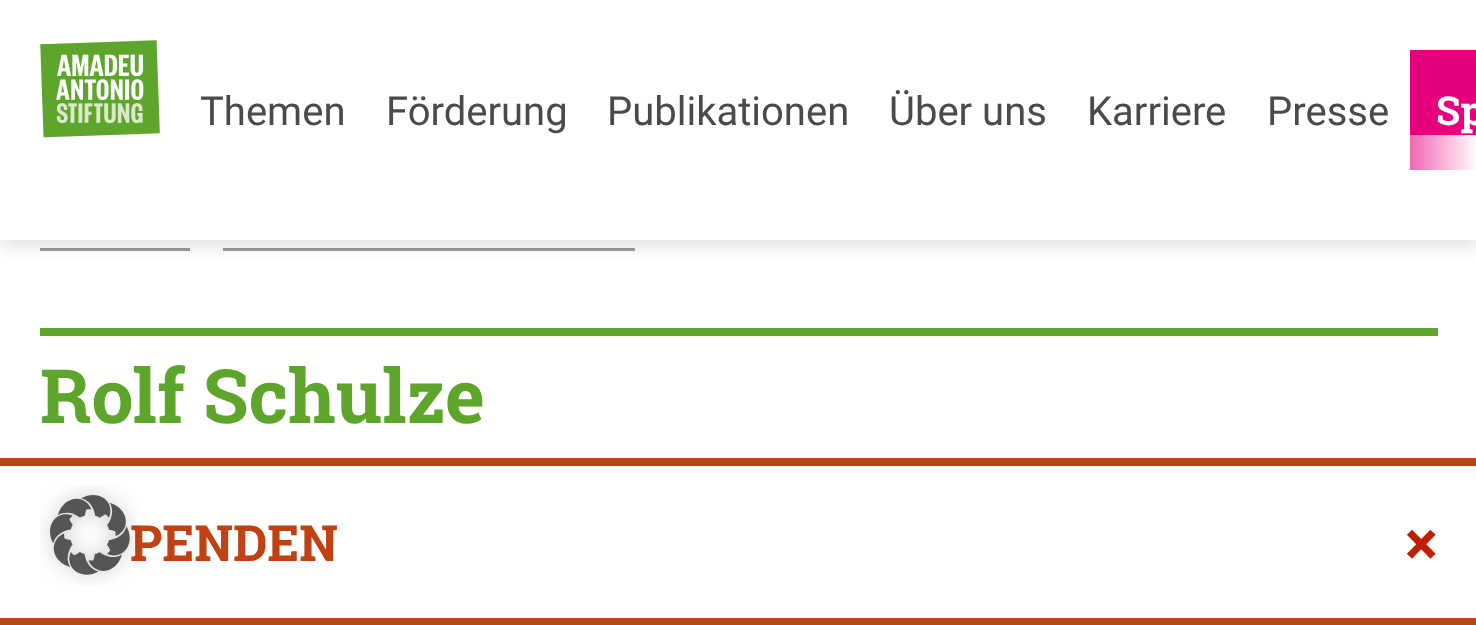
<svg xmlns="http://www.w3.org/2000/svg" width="1476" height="625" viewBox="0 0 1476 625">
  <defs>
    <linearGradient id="g1" gradientUnits="userSpaceOnUse" x1="1363" y1="188" x2="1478" y2="188"><stop offset="0" stop-color="rgb(255,255,255)" stop-opacity="0"/><stop offset="1" stop-color="rgb(255,255,255)"/></linearGradient>
  </defs>
  <rect width="100%" height="100%" fill="rgb(255,255,255)"/>
  <rect x="40" y="248" width="150" height="3" fill="rgb(155,155,155)"/>
  <rect x="223" y="248" width="412" height="3" fill="rgb(155,155,155)"/>
  <rect x="0" y="8" width="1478" height="240" fill="rgba(0,0,0,0.1)" filter="blur(7.5px)"/>
  <rect x="0" y="0" width="1476" height="240" fill="rgb(255,255,255)"/>
  <image x="40" y="40" width="120" height="98" href="pic1.png"/>
  <g font-family="Roboto" font-size="40" fill="rgb(74,74,74)">
    <text x="200" y="125">Themen</text>
    <text x="386" y="125">Förderung</text>
    <text x="607" y="125">Publikationen</text>
    <text x="889" y="125">Über uns</text>
    <text x="1087" y="125">Karriere</text>
    <text x="1267" y="125">Presse</text>
  </g>
  <rect x="1410" y="50" width="66" height="120" fill="rgb(230,0,126)"/>
  <text x="1436" y="125" font-family="Roboto Slab" font-size="40" font-weight="bold" fill="rgb(255,255,255)">Sp</text>
  <rect x="1410" y="135" width="66" height="35" fill="url(#g1)"/>
  <rect x="40" y="328" width="1398" height="8" fill="rgb(94,166,43)"/>
  <text x="40" y="423" font-family="Roboto Slab" font-size="75" font-weight="bold" fill="rgb(94,166,43)">Rolf Schulze</text>
  <rect x="0" y="458" width="1476" height="8" fill="rgb(194,65,19)"/>
  <rect x="0" y="618" width="1476" height="7" fill="rgb(194,65,19)"/>
  <text x="130" y="561" font-family="Roboto Slab" font-size="50" font-weight="bold" fill="rgb(194,65,19)">PENDEN</text>
  <text x="1405" y="565" font-family="Roboto Slab" font-size="62" font-weight="bold" fill="rgb(191,33,0)">×</text>
  <image x="40" y="485" width="100" height="100" href="pic2.png"/>
</svg>
